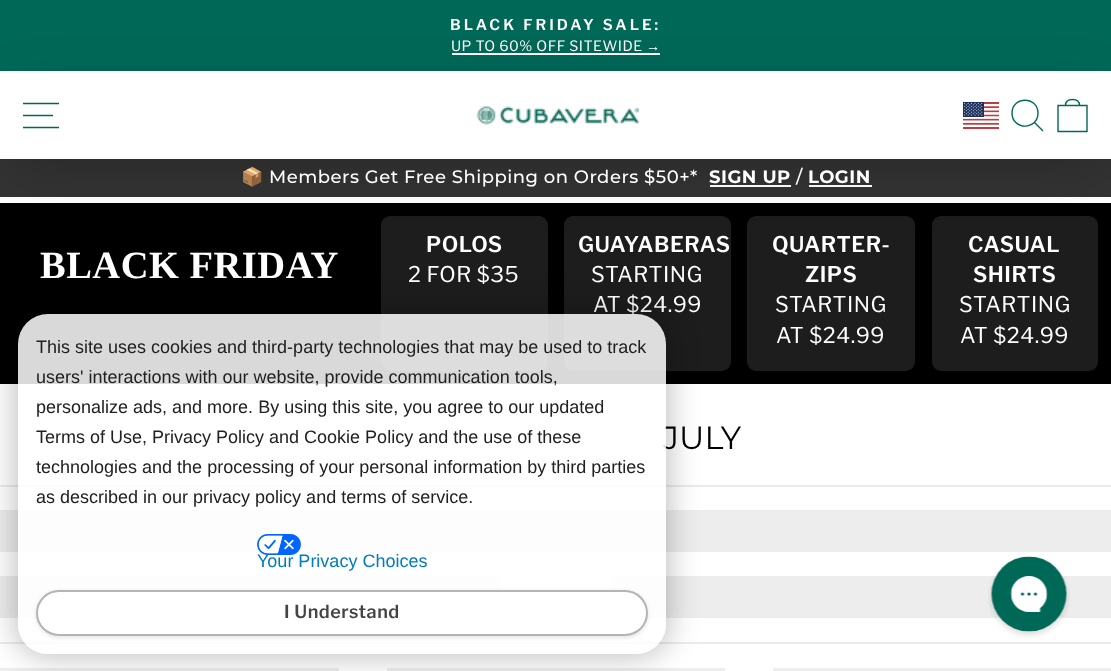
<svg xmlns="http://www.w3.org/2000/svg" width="1111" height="671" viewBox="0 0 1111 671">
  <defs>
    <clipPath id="clip1"><path d="M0 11H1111V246H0ZM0 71H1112V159H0Z" clip-rule="evenodd"/></clipPath>
    <clipPath id="clip2"><path d="M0 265H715V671H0ZM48 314H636C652.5 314 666 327.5 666 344V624C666 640.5 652.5 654 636 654H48C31.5 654 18 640.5 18 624V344C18 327.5 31.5 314 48 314Z" clip-rule="evenodd"/></clipPath>
  </defs>
  <rect width="100%" height="100%" fill="rgb(255,255,255)"/>
  <rect x="0" y="0" width="1111" height="71" fill="rgb(0,104,87)"/>
  <text x="450" y="30" font-family="Libre Franklin" font-size="15" font-weight="600" letter-spacing="3" fill="rgb(255,255,255)">BLACK FRIDAY SALE:</text>
  <text x="451" y="51" font-family="Libre Franklin" font-size="14.2" letter-spacing="0.5" fill="rgb(255,255,255)">UP TO 60% OFF SITEWIDE</text>
  <text x="646" y="51" font-family="Liberation Sans" font-size="14.2" letter-spacing="0.5" fill="rgb(255,255,255)">→</text>
  <rect x="452" y="53" width="208" height="2" fill="rgb(255,255,255)"/>
  <rect x="0" y="159" width="1111" height="38" fill="rgb(51,51,51)"/>
  <rect x="710" y="185" width="81" height="2" fill="rgb(255,255,255)"/>
  <rect x="809" y="185" width="63" height="2" fill="rgb(255,255,255)"/>
  <rect x="0" y="203" width="1111" height="181" fill="rgb(0,0,0)"/>
  <rect x="382" y="217" width="165" height="153" rx="8" fill="rgb(29,29,29)" stroke="rgb(29,29,29)" stroke-width="2"/>
  <rect x="565" y="217" width="165" height="153" rx="8" fill="rgb(29,29,29)" stroke="rgb(29,29,29)" stroke-width="2"/>
  <rect x="748" y="217" width="166" height="153" rx="8" fill="rgb(29,29,29)" stroke="rgb(29,29,29)" stroke-width="2"/>
  <rect x="933" y="217" width="164" height="153" rx="8" fill="rgb(29,29,29)" stroke="rgb(29,29,29)" stroke-width="2"/>
  <g clip-path="url(#clip1)">
    <rect x="15" y="98" width="1085" height="61" fill="rgba(0,0,0,0.25)" filter="blur(28.5px)"/>
  </g>
  <path d="M23 103.5H59M23 115.5H53M23 127.5H59" fill="none" stroke="rgb(0,104,87)" stroke-width="1.4"/>
  <image x="476" y="106" width="163" height="19" href="pic1.png"/>
  <image x="963" y="102" width="36" height="27" href="pic2.png"/>
  <path d="M1038 113C1038 130.5 1012 130.5 1012 113C1012 96 1038 96 1038 113ZM1043 131L1034.5 122.5" fill="none" stroke="rgb(0,104,87)" stroke-width="1.4"/>
  <path d="M1058 105.5H1087V131.5H1058ZM1065.5 105.5C1065.5 100.5 1068.5 99.5 1072.5 99.5C1076.5 99.5 1079.5 100.5 1079.5 105.5" fill="none" stroke="rgb(0,104,87)" stroke-width="1.4"/>
  <text x="241" y="183" font-family="Noto Color Emoji" font-size="18" letter-spacing="0.5" fill="rgb(255,255,255)">📦</text>
  <text x="269" y="183" font-family="Montserrat" font-size="18" font-weight="500" letter-spacing="0.5" fill="rgb(255,255,255)">Members Get Free Shipping on Orders $50+*</text>
  <text x="709" y="183" font-family="Montserrat" font-size="18" font-weight="bold" letter-spacing="0.5" fill="rgb(255,255,255)">SIGN UP</text>
  <text x="796" y="183" font-family="Montserrat" font-size="18" font-weight="500" letter-spacing="0.5" fill="rgb(255,255,255)">/</text>
  <text x="808" y="183" font-family="Montserrat" font-size="18" font-weight="bold" letter-spacing="0.5" fill="rgb(255,255,255)">LOGIN</text>
  <text x="40" y="278" font-family="Liberation Serif" font-size="38.5" font-weight="bold" letter-spacing="0.5" fill="rgb(255,255,255)">BLACK FRIDAY</text>
  <text x="426" y="252" font-family="Libre Franklin" font-size="21.5" font-weight="600" letter-spacing="0.5" fill="rgb(255,255,255)">POLOS</text>
  <text x="408" y="282" font-family="Libre Franklin" font-size="21.5" letter-spacing="0.5" fill="rgb(255,255,255)">2 FOR $35</text>
  <text x="578" y="252" font-family="Libre Franklin" font-size="21.5" font-weight="600" letter-spacing="0.5" fill="rgb(255,255,255)">GUAYABERAS</text>
  <g font-family="Libre Franklin" font-size="21.5" letter-spacing="0.5" fill="rgb(255,255,255)">
    <text x="591" y="282">STARTING</text>
    <text x="593" y="312">AT $24.99</text>
  </g>
  <g font-family="Libre Franklin" font-size="21.5" font-weight="600" letter-spacing="0.5" fill="rgb(255,255,255)">
    <text x="772" y="252">QUARTER-</text>
    <text x="805" y="282">ZIPS</text>
  </g>
  <g font-family="Libre Franklin" font-size="21.5" letter-spacing="0.5" fill="rgb(255,255,255)">
    <text x="775" y="312">STARTING</text>
    <text x="776" y="343">AT $24.99</text>
  </g>
  <g font-family="Libre Franklin" font-size="21.5" font-weight="600" letter-spacing="0.5" fill="rgb(255,255,255)">
    <text x="968" y="252">CASUAL</text>
    <text x="973" y="282">SHIRTS</text>
  </g>
  <g font-family="Libre Franklin" font-size="21.5" letter-spacing="0.5" fill="rgb(255,255,255)">
    <text x="959" y="312">STARTING</text>
    <text x="960" y="343">AT $24.99</text>
  </g>
  <text x="663" y="449" font-family="Montserrat" font-size="32" fill="rgb(0,0,0)">JULY</text>
  <rect x="0" y="485" width="1111" height="2" fill="rgb(235,235,235)"/>
  <rect x="0" y="642" width="1111" height="2" fill="rgb(235,235,235)"/>
  <rect x="0" y="510" width="1111" height="42" fill="rgb(237,237,237)"/>
  <rect x="0" y="576" width="500" height="42" fill="rgb(237,237,237)"/>
  <rect x="612" y="576" width="499" height="42" fill="rgb(237,237,237)"/>
  <rect x="0" y="668" width="339" height="3" fill="rgb(237,237,237)"/>
  <rect x="387" y="668" width="338" height="3" fill="rgb(237,237,237)"/>
  <rect x="773" y="668" width="338" height="3" fill="rgb(237,237,237)"/>
  <image x="988" y="556" width="82" height="82" href="pic3.png"/>
  <g clip-path="url(#clip2)">
    <rect x="15" y="311" width="654" height="346" rx="33" fill="rgba(0,0,0,0.25)" filter="blur(15px)"/>
  </g>
  <rect x="18" y="314" width="648" height="340" rx="30" fill="rgba(255,255,255,0.85)"/>
  <g font-family="Liberation Sans" font-size="18" fill="rgb(33,33,33)">
    <text>
      <tspan x="36" y="353">This site uses cookies and third-party technologies that may be used to track</tspan>
      <tspan x="36" y="383">users' interactions with our website, provide communication tools,</tspan>
      <tspan x="36" y="413">personalize ads, and more. By using this site, you agree to our updated</tspan>
      <tspan x="36" y="443">Terms of Use, Privacy Policy and Cookie Policy and the use of these</tspan>
      <tspan x="36" y="473">technologies and the processing of your personal information by third parties</tspan>
      <tspan x="36" y="503">as described in our privacy policy and terms of service.</tspan>
    </text>
  </g>
  <text x="257" y="567" font-family="Liberation Sans" font-size="18" fill="rgb(0,123,189)">Your Privacy Choices</text>
  <image x="257" y="534" width="44" height="21" href="pic4.png"/>
  <rect x="36" y="591" width="612" height="47" rx="23" fill="rgba(0,0,0,0.1)" filter="blur(2px)"/>
  <rect x="37" y="591" width="610" height="44" rx="22" fill="rgb(255,255,255)" stroke="rgb(180,180,180)" stroke-width="2"/>
  <text x="284" y="618" font-family="Libre Franklin" font-size="18" font-weight="600" letter-spacing="0.5" fill="rgb(68,68,68)">I Understand</text>
</svg>
